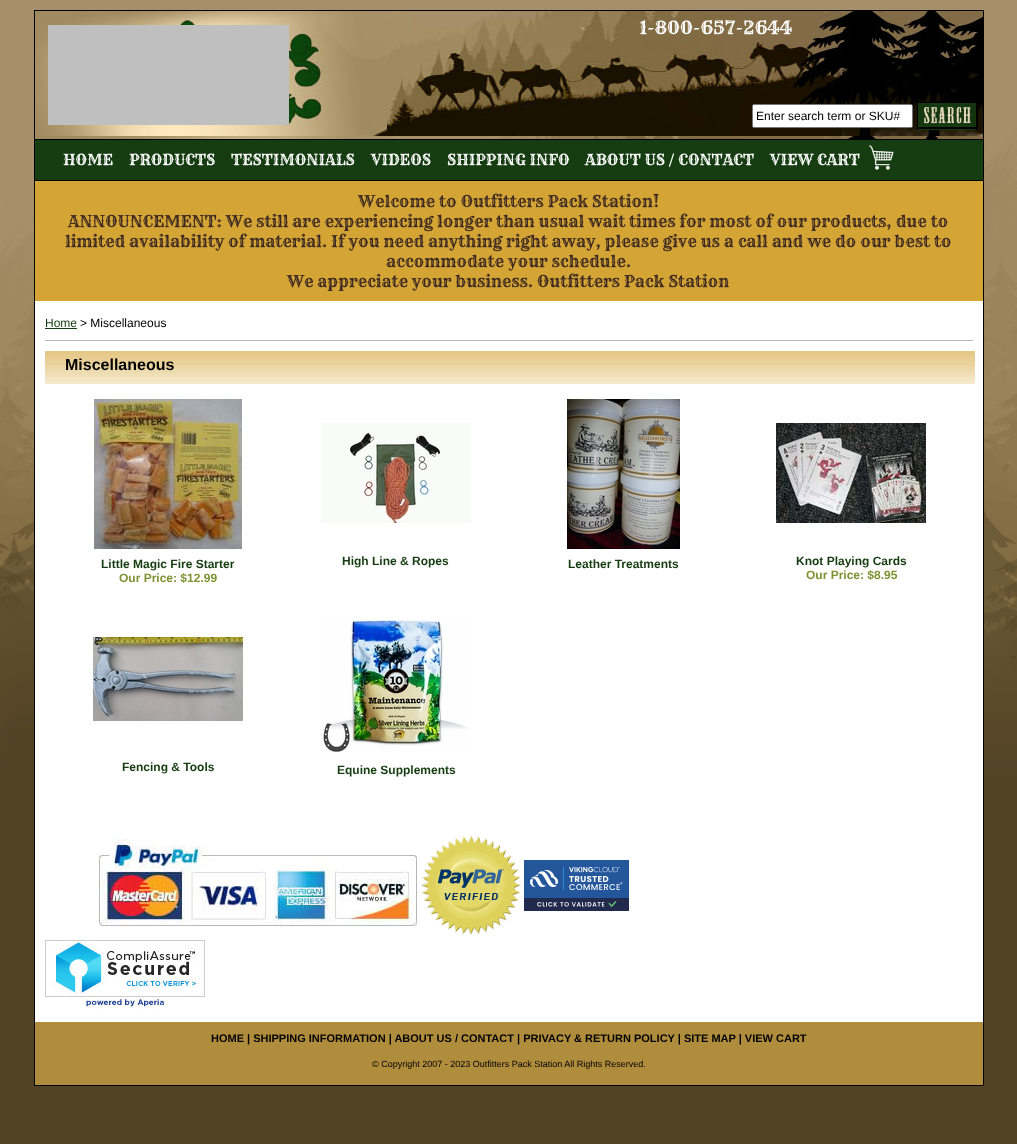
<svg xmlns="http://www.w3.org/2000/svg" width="1017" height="1144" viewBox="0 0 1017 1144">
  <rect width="100%" height="100%" fill="rgb(82,67,37)"/>
  <image x="0" y="0" width="1017" height="776" href="pic1.png"/>
  <rect x="35" y="301" width="948" height="721" fill="rgb(255,255,255)"/>
  <rect x="34.5" y="10.5" width="949" height="1075" fill="none" stroke="rgb(0,0,0)"/>
  <image x="35" y="11" width="948" height="128" href="pic2.png"/>
  <rect x="35" y="139" width="948" height="1" fill="rgb(0,0,0)"/>
  <rect x="48" y="25" width="241" height="100" fill="rgb(191,191,191)"/>
  <text x="639" y="34" font-family="Rye" font-size="18" fill="rgb(255,255,255)">1-800-657-2644</text>
  <rect x="752.5" y="104.5" width="160" height="23" rx="1.5" fill="rgb(255,255,255)" stroke="rgb(118,118,118)"/>
  <text x="756" y="120" font-family="Liberation Sans" font-size="12" fill="rgb(0,0,0)">Enter search term or SKU#</text>
  <image x="917" y="102" width="61" height="28" href="pic3.png"/>
  <rect x="35" y="140" width="948" height="40" fill="rgb(22,60,17)"/>
  <rect x="35" y="180" width="948" height="1" fill="rgb(0,0,0)"/>
  <g font-family="Rye" font-size="15" fill="rgb(255,255,255)">
    <text x="63" y="165">HOME</text>
    <text x="129" y="165">PRODUCTS</text>
    <text x="231" y="165">TESTIMONIALS</text>
    <text x="371" y="165">VIDEOS</text>
    <text x="447" y="165">SHIPPING INFO</text>
    <text x="585" y="165">ABOUT US / CONTACT</text>
    <text x="770" y="165">VIEW CART</text>
  </g>
  <image x="869" y="145" width="25" height="25" href="pic4.png"/>
  <rect x="35" y="181" width="948" height="120" fill="rgb(212,164,53)"/>
  <g font-family="Rye" font-size="16" fill="rgb(60,41,34)">
    <text x="358" y="207">Welcome to Outfitters Pack Station!</text>
    <text x="68" y="227">ANNOUNCEMENT: We still are experiencing longer than usual wait times for most of our products, due to</text>
    <text x="65" y="247">limited availability of material. If you need anything right away, please give us a call and we do our best to</text>
    <text x="386" y="267">accommodate your schedule.</text>
    <text x="287" y="287">We appreciate your business. Outfitters Pack Station</text>
  </g>
  <rect x="45" y="340" width="928" height="1" fill="rgb(182,182,182)"/>
  <text x="45" y="327" font-family="Liberation Sans" font-size="12" fill="rgb(22,61,17)">Home</text>
  <rect x="45" y="328" width="32" height="1" fill="rgb(22,61,17)"/>
  <text x="80" y="327" font-family="Liberation Sans" font-size="12" fill="rgb(0,0,0)">&gt; Miscellaneous</text>
  <image x="45" y="351" width="930" height="33" href="pic5.png"/>
  <text x="65" y="370" font-family="Liberation Sans" font-size="16" font-weight="bold" fill="rgb(0,0,0)">Miscellaneous</text>
  <image x="94" y="399" width="148" height="150" href="pic6.png"/>
  <text x="101" y="568" font-family="Liberation Sans" font-size="12" font-weight="bold" fill="rgb(22,61,17)">Little Magic Fire Starter</text>
  <text x="119" y="582" font-family="Liberation Sans" font-size="12" font-weight="bold" fill="rgb(125,146,51)">Our Price: $12.99</text>
  <image x="321" y="423" width="150" height="100" href="pic7.png"/>
  <text x="342" y="565" font-family="Liberation Sans" font-size="12" font-weight="bold" fill="rgb(22,61,17)">High Line &amp; Ropes</text>
  <image x="567" y="399" width="113" height="150" href="pic8.png"/>
  <text x="568" y="568" font-family="Liberation Sans" font-size="12" font-weight="bold" fill="rgb(22,61,17)">Leather Treatments</text>
  <image x="776" y="423" width="150" height="100" href="pic9.png"/>
  <text x="796" y="565" font-family="Liberation Sans" font-size="12" font-weight="bold" fill="rgb(22,61,17)">Knot Playing Cards</text>
  <text x="806" y="579" font-family="Liberation Sans" font-size="12" font-weight="bold" fill="rgb(125,146,51)">Our Price: $8.95</text>
  <image x="93" y="637" width="150" height="84" href="pic10.png"/>
  <text x="122" y="771" font-family="Liberation Sans" font-size="12" font-weight="bold" fill="rgb(22,61,17)">Fencing &amp; Tools</text>
  <image x="323" y="619" width="145" height="133" href="pic11.png"/>
  <text x="337" y="774" font-family="Liberation Sans" font-size="12" font-weight="bold" fill="rgb(22,61,17)">Equine Supplements</text>
  <image x="98" y="838" width="319" height="88" href="pic12.png"/>
  <image x="421" y="836" width="100" height="99" href="pic13.png"/>
  <image x="524" y="860" width="105" height="51" href="pic14.png"/>
  <image x="45" y="940" width="160" height="69" href="pic15.png"/>
  <rect x="35" y="1022" width="948" height="63" fill="rgb(176,141,61)"/>
  <text x="211" y="1042" font-family="Liberation Sans" font-size="11" font-weight="bold" fill="rgb(0,0,0)">HOME | SHIPPING INFORMATION | ABOUT US / CONTACT | PRIVACY &amp; RETURN POLICY | SITE MAP | VIEW CART</text>
  <text x="372" y="1067" font-family="Liberation Sans" font-size="9" fill="rgb(0,0,0)">© Copyright 2007 - 2023 Outfitters Pack Station All Rights Reserved.</text>
</svg>
